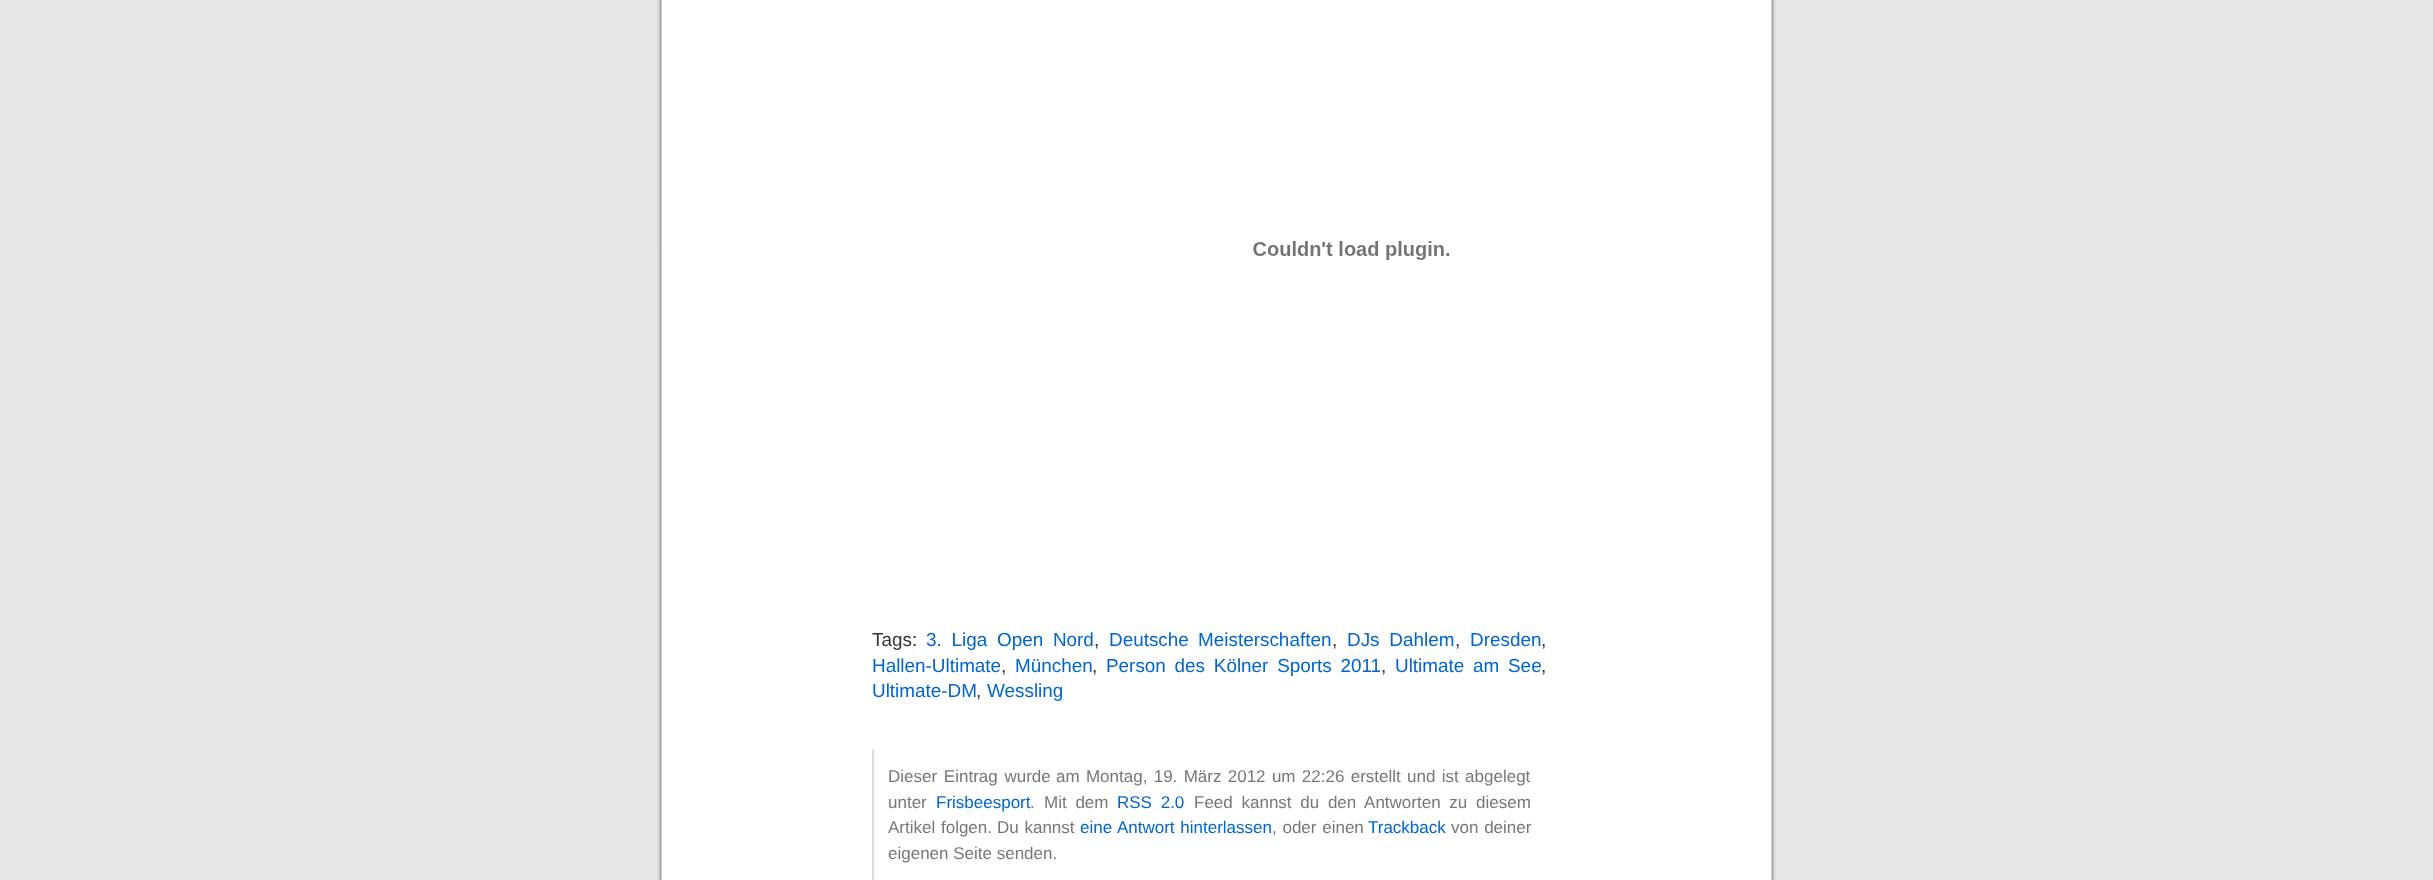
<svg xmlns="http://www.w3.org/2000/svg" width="2433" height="880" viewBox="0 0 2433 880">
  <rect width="100%" height="100%" fill="rgb(231,231,231)"/>
  <image x="657" y="0" width="1119" height="880" href="pic1.png"/>
  <image x="1253" y="241" width="197" height="19" href="pic2.png"/>
  <text x="872" y="646" font-family="Liberation Sans" font-size="18.9" fill="rgb(51,51,51)">Tags:</text>
  <text x="926" y="646" word-spacing="4.5" font-family="Liberation Sans" font-size="18.9" fill="rgb(0,102,204)">3. Liga Open Nord</text>
  <text x="1094" y="646" font-family="Liberation Sans" font-size="18.9" fill="rgb(51,51,51)">,</text>
  <text x="1109" y="646" word-spacing="4" font-family="Liberation Sans" font-size="18.9" fill="rgb(0,102,204)">Deutsche Meisterschaften</text>
  <text x="1332" y="646" font-family="Liberation Sans" font-size="18.9" fill="rgb(51,51,51)">,</text>
  <text x="1347" y="646" word-spacing="4.5" font-family="Liberation Sans" font-size="18.9" fill="rgb(0,102,204)">DJs Dahlem</text>
  <text x="1455" y="646" font-family="Liberation Sans" font-size="18.9" fill="rgb(51,51,51)">,</text>
  <text x="1470" y="646" font-family="Liberation Sans" font-size="18.9" fill="rgb(0,102,204)">Dresden</text>
  <text x="1541" y="646" font-family="Liberation Sans" font-size="18.9" fill="rgb(51,51,51)">,</text>
  <text x="872" y="672" font-family="Liberation Sans" font-size="18.9" fill="rgb(0,102,204)">Hallen-Ultimate</text>
  <text x="1001" y="672" font-family="Liberation Sans" font-size="18.9" fill="rgb(51,51,51)">,</text>
  <text x="1015" y="672" font-family="Liberation Sans" font-size="18.9" fill="rgb(0,102,204)">München</text>
  <text x="1092" y="672" font-family="Liberation Sans" font-size="18.9" fill="rgb(51,51,51)">,</text>
  <text x="1106" y="672" word-spacing="3.5" font-family="Liberation Sans" font-size="18.9" fill="rgb(0,102,204)">Person des Kölner Sports 2011</text>
  <text x="1381" y="672" font-family="Liberation Sans" font-size="18.9" fill="rgb(51,51,51)">,</text>
  <text x="1395" y="672" word-spacing="3.5" font-family="Liberation Sans" font-size="18.9" fill="rgb(0,102,204)">Ultimate am See</text>
  <text x="1541" y="672" font-family="Liberation Sans" font-size="18.9" fill="rgb(51,51,51)">,</text>
  <text x="872" y="697" font-family="Liberation Sans" font-size="18.9" fill="rgb(0,102,204)">Ultimate-DM</text>
  <text x="976" y="697" font-family="Liberation Sans" font-size="18.9" fill="rgb(51,51,51)">,</text>
  <text x="987" y="697" font-family="Liberation Sans" font-size="18.9" fill="rgb(0,102,204)">Wessling</text>
  <rect x="872" y="749" width="2" height="131" fill="rgb(221,221,221)"/>
  <g font-family="Liberation Sans" font-size="17" fill="rgb(119,119,119)">
    <text x="888" y="782" word-spacing="2">Dieser Eintrag wurde</text>
    <text x="1056" y="782" word-spacing="1.6">am Montag, 19. März 2012 um 22:26 erstellt und ist abgelegt</text>
    <text x="888" y="808">unter</text>
  </g>
  <text x="936" y="808" font-family="Liberation Sans" font-size="17" fill="rgb(0,102,204)">Frisbeesport</text>
  <g font-family="Liberation Sans" font-size="17" fill="rgb(119,119,119)">
    <text x="1030" y="808">.</text>
    <text x="1044" y="808" word-spacing="4">Mit dem</text>
  </g>
  <text x="1117" y="808" word-spacing="4" font-family="Liberation Sans" font-size="17" fill="rgb(0,102,204)">RSS 2.0</text>
  <g font-family="Liberation Sans" font-size="17" fill="rgb(119,119,119)">
    <text x="1194" y="808" word-spacing="4">Feed kannst du den Antworten zu diesem</text>
    <text x="888" y="833" word-spacing="1">Artikel folgen.</text>
    <text x="997" y="833" word-spacing="1">Du kannst</text>
  </g>
  <text x="1080" y="833" word-spacing="1" font-family="Liberation Sans" font-size="17" fill="rgb(0,102,204)">eine Antwort hinterlassen</text>
  <text x="1272" y="833" word-spacing="1" font-family="Liberation Sans" font-size="17" fill="rgb(119,119,119)">, oder einen</text>
  <text x="1368" y="833" font-family="Liberation Sans" font-size="17" fill="rgb(0,102,204)">Trackback</text>
  <g font-family="Liberation Sans" font-size="17" fill="rgb(119,119,119)">
    <text x="1451" y="833" word-spacing="1">von deiner</text>
    <text x="888" y="859">eigenen Seite senden.</text>
  </g>
</svg>
